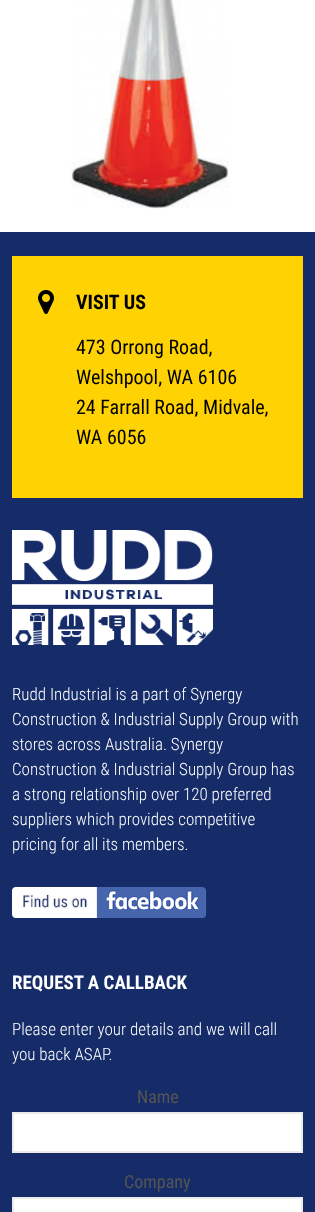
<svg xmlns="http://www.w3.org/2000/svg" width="315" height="1212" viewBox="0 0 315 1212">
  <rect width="100%" height="100%" fill="rgb(255,255,255)"/>
  <image x="71" y="0" width="158" height="209" href="pic1.png"/>
  <rect x="0" y="232" width="315" height="980" fill="rgb(22,44,105)"/>
  <rect x="12" y="256" width="291" height="242" fill="rgb(255,211,3)"/>
  <image x="38" y="290" width="16" height="24" href="pic2.png"/>
  <text x="76" y="309" font-family="Roboto Condensed" font-size="20" font-weight="bold" fill="rgb(0,0,0)">VISIT US</text>
  <g font-family="Roboto Condensed" font-size="20" fill="rgb(0,0,0)">
    <text>
      <tspan x="76" y="354">473 Orrong Road,</tspan>
      <tspan x="76" y="384">Welshpool, WA 6106</tspan>
      <tspan x="76" y="414">24 Farrall Road, Midvale,</tspan>
      <tspan x="76" y="444">WA 6056</tspan>
    </text>
  </g>
  <image x="12" y="530" width="201" height="115" href="pic3.png"/>
  <g font-family="Roboto Condensed" font-size="17" font-weight="300" fill="rgb(255,255,255)">
    <text>
      <tspan x="12" y="700">Rudd Industrial is a part of Synergy</tspan>
      <tspan x="12" y="725">Construction &amp; Industrial Supply Group with</tspan>
      <tspan x="12" y="750">stores across Australia. Synergy</tspan>
      <tspan x="12" y="775">Construction &amp; Industrial Supply Group has</tspan>
      <tspan x="12" y="800">a strong relationship over 120 preferred</tspan>
      <tspan x="12" y="825">suppliers which provides competitive</tspan>
      <tspan x="12" y="850">pricing for all its members.</tspan>
    </text>
  </g>
  <image x="12" y="887" width="194" height="31" href="pic4.png"/>
  <text x="12" y="989" font-family="Roboto Condensed" font-size="19" font-weight="bold" fill="rgb(255,255,255)">REQUEST A CALLBACK</text>
  <g font-family="Roboto Condensed" font-size="17" font-weight="300" fill="rgb(255,255,255)">
    <text>
      <tspan x="12" y="1035">Please enter your details and we will call</tspan>
      <tspan x="12" y="1060">you back ASAP.</tspan>
    </text>
  </g>
  <text x="137" y="1103" font-family="Roboto Condensed" font-size="18" fill="rgb(84,84,84)">Name</text>
  <rect x="13" y="1113" width="289" height="39" fill="rgb(255,255,255)" stroke="rgb(235,235,235)" stroke-width="2"/>
  <text x="124" y="1188" font-family="Roboto Condensed" font-size="18" fill="rgb(84,84,84)">Company</text>
  <rect x="13" y="1198" width="289" height="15" fill="rgb(255,255,255)" stroke="rgb(235,235,235)" stroke-width="2"/>
</svg>
